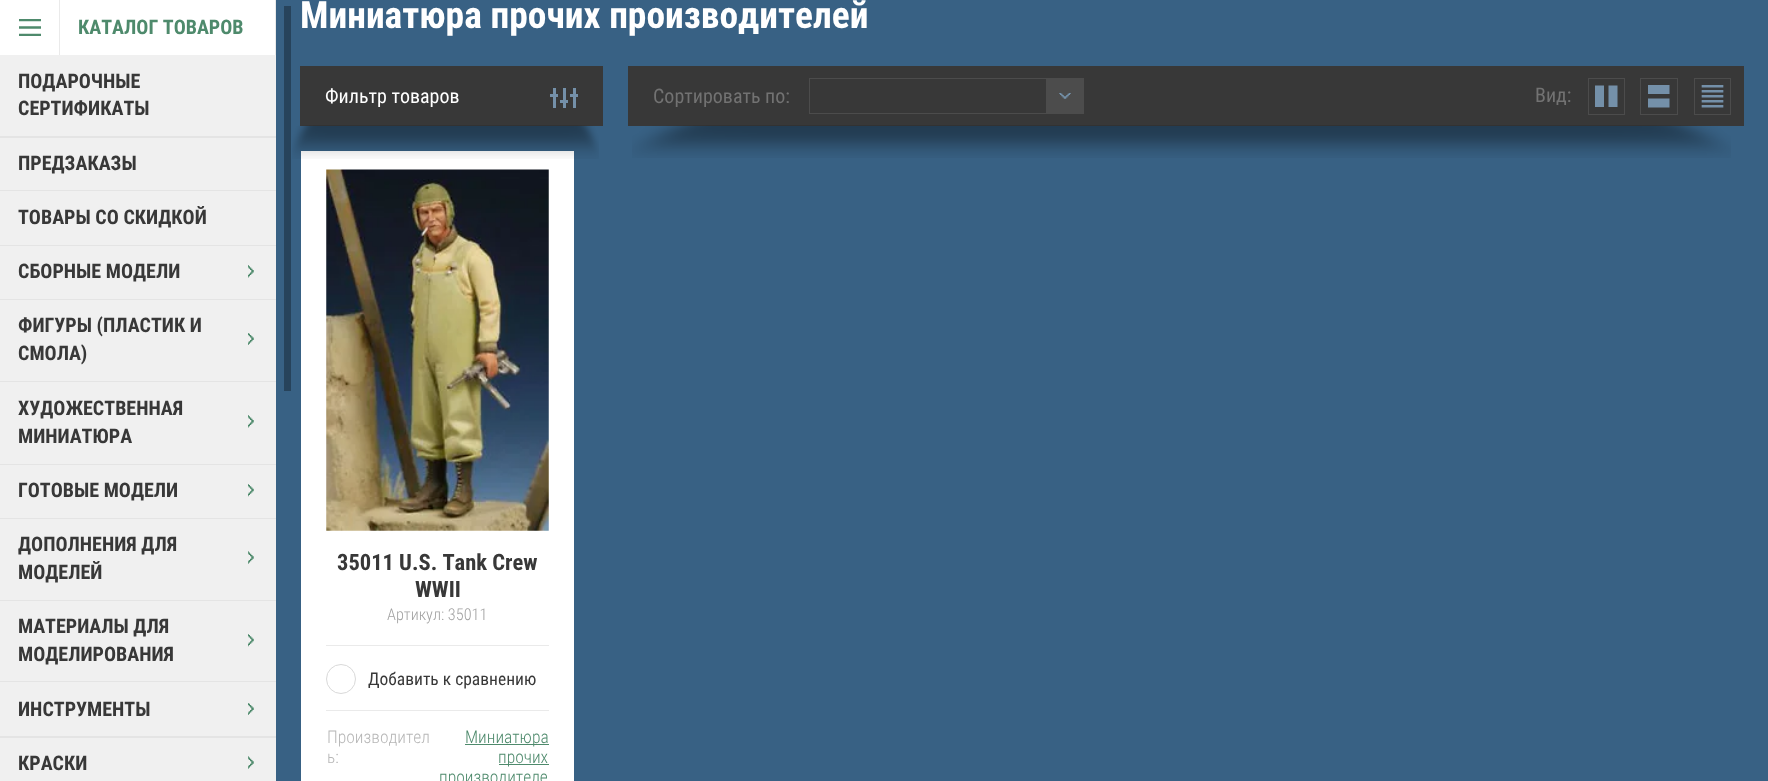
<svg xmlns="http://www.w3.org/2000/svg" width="1768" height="781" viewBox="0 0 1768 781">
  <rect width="100%" height="100%" fill="rgb(56,97,132)"/>
  <rect x="0" y="0" width="275" height="55" fill="rgb(255,255,255)"/>
  <rect x="275" y="0" width="1" height="55" fill="rgb(234,234,234)"/>
  <image x="19" y="19" width="22" height="17" href="pic1.png"/>
  <rect x="59" y="0" width="1" height="55" fill="rgb(234,234,234)"/>
  <text x="78" y="34" font-family="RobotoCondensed" font-size="20" font-weight="bold" fill="rgb(78,138,108)">КАТАЛОГ ТОВАРОВ</text>
  <rect x="0" y="55" width="276" height="726" fill="rgb(240,240,240)"/>
  <g font-family="RobotoCondensed" font-size="20" font-weight="bold" fill="rgb(56,56,56)">
    <text>
      <tspan x="18" y="88">ПОДАРОЧНЫЕ</tspan>
      <tspan x="18" y="115">СЕРТИФИКАТЫ</tspan>
    </text>
  </g>
  <rect x="0" y="136" width="276" height="2" fill="rgb(228,228,228)"/>
  <text x="18" y="170" font-family="RobotoCondensed" font-size="20" font-weight="bold" fill="rgb(56,56,56)">ПРЕДЗАКАЗЫ</text>
  <rect x="0" y="190" width="276" height="1" fill="rgb(228,228,228)"/>
  <text x="18" y="224" font-family="RobotoCondensed" font-size="20" font-weight="bold" fill="rgb(56,56,56)">ТОВАРЫ СО СКИДКОЙ</text>
  <rect x="0" y="245" width="276" height="1" fill="rgb(228,228,228)"/>
  <text x="18" y="278" font-family="RobotoCondensed" font-size="20" font-weight="bold" fill="rgb(56,56,56)">СБОРНЫЕ МОДЕЛИ</text>
  <image x="248" y="265" width="6" height="13" href="pic2.png"/>
  <rect x="0" y="299" width="276" height="1" fill="rgb(228,228,228)"/>
  <g font-family="RobotoCondensed" font-size="20" font-weight="bold" fill="rgb(56,56,56)">
    <text>
      <tspan x="18" y="332">ФИГУРЫ (ПЛАСТИК И</tspan>
      <tspan x="18" y="360">СМОЛА)</tspan>
    </text>
  </g>
  <image x="248" y="333" width="6" height="12" href="pic3.png"/>
  <rect x="0" y="381" width="276" height="1" fill="rgb(228,228,228)"/>
  <g font-family="RobotoCondensed" font-size="20" font-weight="bold" fill="rgb(56,56,56)">
    <text>
      <tspan x="18" y="415">ХУДОЖЕСТВЕННАЯ</tspan>
      <tspan x="18" y="443">МИНИАТЮРА</tspan>
    </text>
  </g>
  <image x="248" y="415" width="6" height="13" href="pic2.png"/>
  <rect x="0" y="464" width="276" height="1" fill="rgb(228,228,228)"/>
  <text x="18" y="497" font-family="RobotoCondensed" font-size="20" font-weight="bold" fill="rgb(56,56,56)">ГОТОВЫЕ МОДЕЛИ</text>
  <image x="248" y="484" width="6" height="13" href="pic4.png"/>
  <rect x="0" y="518" width="276" height="1" fill="rgb(228,228,228)"/>
  <g font-family="RobotoCondensed" font-size="20" font-weight="bold" fill="rgb(56,56,56)">
    <text>
      <tspan x="18" y="551">ДОПОЛНЕНИЯ ДЛЯ</tspan>
      <tspan x="18" y="579">МОДЕЛЕЙ</tspan>
    </text>
  </g>
  <image x="248" y="551" width="6" height="13" href="pic5.png"/>
  <rect x="0" y="600" width="276" height="1" fill="rgb(228,228,228)"/>
  <g font-family="RobotoCondensed" font-size="20" font-weight="bold" fill="rgb(56,56,56)">
    <text>
      <tspan x="18" y="633">МАТЕРИАЛЫ ДЛЯ</tspan>
      <tspan x="18" y="661">МОДЕЛИРОВАНИЯ</tspan>
    </text>
  </g>
  <image x="248" y="634" width="6" height="13" href="pic4.png"/>
  <rect x="0" y="681" width="276" height="1" fill="rgb(228,228,228)"/>
  <text x="18" y="716" font-family="RobotoCondensed" font-size="20" font-weight="bold" fill="rgb(56,56,56)">ИНСТРУМЕНТЫ</text>
  <image x="248" y="703" width="6" height="12" href="pic3.png"/>
  <rect x="0" y="736" width="276" height="2" fill="rgb(228,228,228)"/>
  <text x="18" y="770" font-family="RobotoCondensed" font-size="20" font-weight="bold" fill="rgb(56,56,56)">КРАСКИ</text>
  <image x="248" y="756" width="6" height="13" href="pic5.png"/>
  <rect x="284" y="6" width="7" height="385" fill="rgb(39,67,91)"/>
  <text x="300" y="28" font-family="RobotoCondensed" font-size="37.5" font-weight="bold" fill="rgb(255,255,255)">Миниатюра прочих производителей</text>
  <rect x="300" y="66" width="303" height="60" fill="rgb(56,56,56)"/>
  <text x="325" y="103" font-family="RobotoCondensed" font-size="20" fill="rgb(255,255,255)">Фильтр товаров</text>
  <rect x="553" y="88" width="3" height="20" fill="rgb(116,144,169)"/>
  <rect x="550" y="94" width="8" height="3" fill="rgb(116,144,169)"/>
  <rect x="563" y="88" width="3" height="20" fill="rgb(116,144,169)"/>
  <rect x="560" y="100" width="8" height="3" fill="rgb(116,144,169)"/>
  <rect x="573" y="88" width="3" height="20" fill="rgb(116,144,169)"/>
  <rect x="570" y="94" width="8" height="3" fill="rgb(116,144,169)"/>
  <rect x="301" y="151" width="273" height="630" fill="rgb(255,255,255)"/>
  <image x="292" y="125" width="307" height="34" href="pic6.png"/>
  <rect x="628" y="66" width="1116" height="60" fill="rgb(56,56,56)"/>
  <text x="653" y="103" font-family="RobotoCondensed" font-size="20" fill="rgb(114,114,114)">Сортировать по:</text>
  <rect x="1046" y="79" width="37" height="34" fill="rgb(76,76,76)"/>
  <image x="1059" y="93" width="12" height="6" href="pic7.png"/>
  <rect x="809.5" y="78.5" width="274" height="35" fill="none" stroke="rgb(76,76,76)"/>
  <text x="1535" y="102" font-family="RobotoCondensed" font-size="20" fill="rgb(114,114,114)">Вид:</text>
  <rect x="1588.5" y="78.5" width="36" height="36" fill="none" stroke="rgb(76,76,76)"/>
  <path d="M1608.5 107V85.5H1617.5V107ZM1595 85.5H1604V107H1595Z" fill="rgb(116,144,169)" fill-rule="evenodd"/>
  <rect x="1640.5" y="78.5" width="37" height="36" fill="none" stroke="rgb(76,76,76)"/>
  <path d="M1648 107.5V98.5H1669.5V107.5ZM1648 85H1669.5V94H1648Z" fill="rgb(116,144,169)" fill-rule="evenodd"/>
  <rect x="1694.5" y="78.5" width="36" height="36" fill="none" stroke="rgb(76,76,76)"/>
  <image x="1701" y="85" width="23" height="23" href="pic8.png"/>
  <image x="632" y="125" width="1099" height="33" href="pic9.png"/>
  <image x="326" y="169" width="223" height="362" href="pic10.png"/>
  <g font-family="RobotoCondensed" font-size="22.5" font-weight="bold" fill="rgb(56,56,56)">
    <text x="337" y="570">35011 U.S. Tank Crew</text>
    <text x="415" y="597">WWII</text>
  </g>
  <text x="387" y="620" font-family="Roboto Condensed" font-size="16.25" font-weight="300" fill="rgb(161,161,161)">Артикул: 35011</text>
  <rect x="326" y="645" width="223" height="1" fill="rgb(234,234,234)"/>
  <circle cx="341" cy="679" r="14.5" fill="none" stroke="rgb(217,217,217)"/>
  <text x="368" y="685" font-family="RobotoCondensed" font-size="17.5" fill="rgb(56,56,56)">Добавить к сравнению</text>
  <rect x="326" y="710" width="223" height="1" fill="rgb(234,234,234)"/>
  <g font-family="Roboto Condensed" font-size="17.5" font-weight="300" fill="rgb(183,183,183)">
    <text>
      <tspan x="327" y="743">Производител</tspan>
      <tspan x="327" y="763">ь:</tspan>
    </text>
  </g>
  <rect x="465" y="744" width="84" height="1" fill="rgb(78,138,108)"/>
  <text x="465" y="743" font-family="Roboto Condensed" font-size="17.5" font-weight="300" fill="rgb(78,138,108)">Миниатюра</text>
  <rect x="499" y="764" width="50" height="1" fill="rgb(78,138,108)"/>
  <g font-family="Roboto Condensed" font-size="17.5" font-weight="300" fill="rgb(78,138,108)">
    <text x="498" y="763">прочих</text>
    <text x="439" y="783">производителе</text>
  </g>
</svg>
